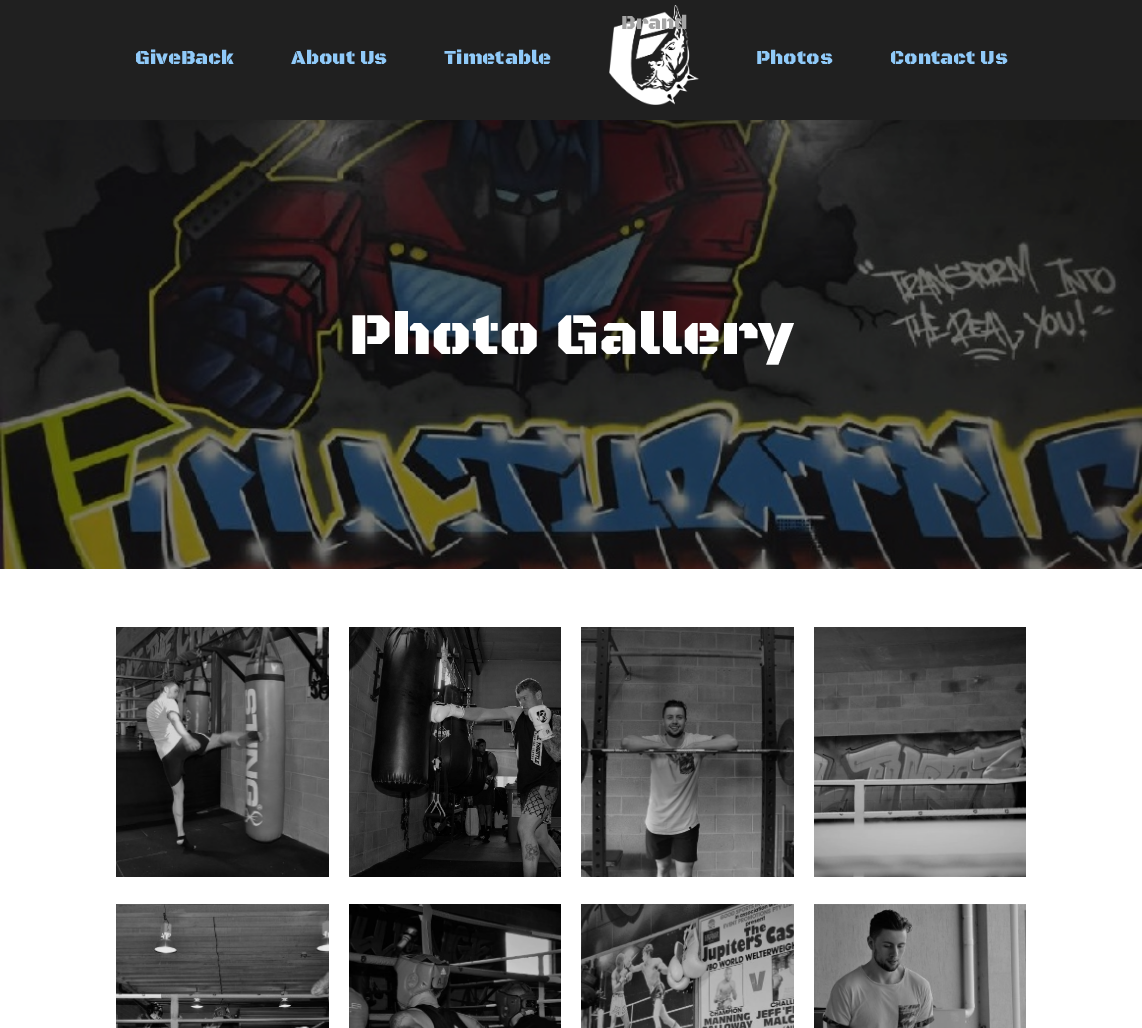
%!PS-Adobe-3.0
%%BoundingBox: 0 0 1142 1028
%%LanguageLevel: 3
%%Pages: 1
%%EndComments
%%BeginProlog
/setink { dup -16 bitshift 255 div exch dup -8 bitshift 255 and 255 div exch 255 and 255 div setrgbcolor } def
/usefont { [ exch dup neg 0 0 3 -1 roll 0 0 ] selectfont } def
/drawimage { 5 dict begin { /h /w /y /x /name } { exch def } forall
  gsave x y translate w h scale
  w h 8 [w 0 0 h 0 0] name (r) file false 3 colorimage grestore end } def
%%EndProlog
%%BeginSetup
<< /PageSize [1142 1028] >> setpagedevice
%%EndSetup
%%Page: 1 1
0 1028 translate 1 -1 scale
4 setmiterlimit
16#FFFFFF setink
0 0 1142 1028 rectfill
16#202020 setink
0 0 1142 120 rectfill
(img1.raw) 609 5 90 100 drawimage
/BlackOpsOne-Black 20 usefont
16#A5A5A5 setink
621 29 moveto (Brand) show
16#90CAF9 setink
[
    [(GiveBack) 135 64]
    [(About Us) 291 64]
    [(Timetable) 444 64]
    [(Photos) 756 64]
    [(Contact Us) 890 64]
] { aload pop moveto show } forall
(img2.raw) 0 120 1142 449 drawimage
/BlackOpsOne-Black 60 usefont
16#FFFFFF setink
349 354 moveto (Photo Gallery) show
(img3.raw) 116 627 213 250 drawimage
(img4.raw) 349 627 212 250 drawimage
(img5.raw) 581 627 213 250 drawimage
(img6.raw) 814 627 212 250 drawimage
(img7.raw) 116 904 213 124 drawimage
(img8.raw) 349 904 212 124 drawimage
(img9.raw) 581 904 213 124 drawimage
(img10.raw) 814 904 212 124 drawimage
showpage
%%EOF
